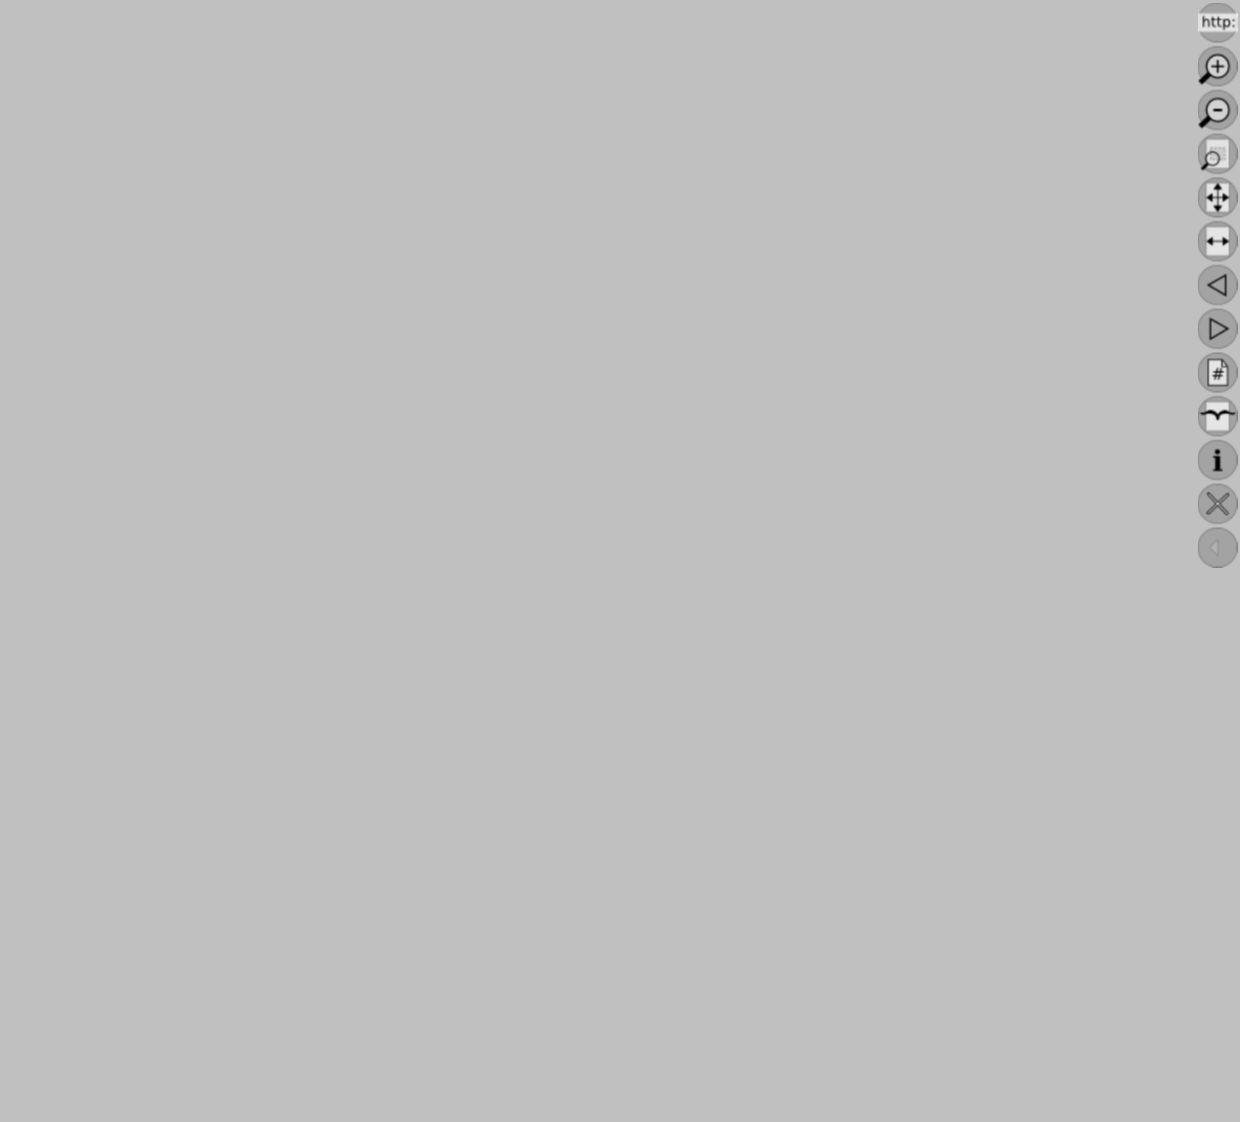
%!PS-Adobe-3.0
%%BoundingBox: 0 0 1240 1122
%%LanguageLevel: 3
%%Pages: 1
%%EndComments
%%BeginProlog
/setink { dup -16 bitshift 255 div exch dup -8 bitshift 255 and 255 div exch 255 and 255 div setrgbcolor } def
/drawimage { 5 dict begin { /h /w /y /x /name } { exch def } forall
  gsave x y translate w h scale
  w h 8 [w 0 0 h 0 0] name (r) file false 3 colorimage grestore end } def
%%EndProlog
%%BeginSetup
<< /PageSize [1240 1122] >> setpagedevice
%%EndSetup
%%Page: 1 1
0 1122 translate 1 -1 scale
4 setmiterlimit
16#C0C0C0 setink
0 0 1240 1122 rectfill
(img1.raw) 1198 3 40 40 drawimage
(img2.raw) 1198 45 40 42 drawimage
(img3.raw) 1198 89 40 42 drawimage
(img4.raw) 1198 133 40 42 drawimage
(img5.raw) 1198 177 40 41 drawimage
(img6.raw) 1198 220 40 42 drawimage
(img7.raw) 1198 264 40 42 drawimage
(img8.raw) 1198 308 40 42 drawimage
(img9.raw) 1198 352 40 41 drawimage
(img10.raw) 1198 395 40 42 drawimage
(img11.raw) 1198 439 40 42 drawimage
(img12.raw) 1198 483 40 42 drawimage
(img13.raw) 1198 527 40 41 drawimage
showpage
%%EOF
